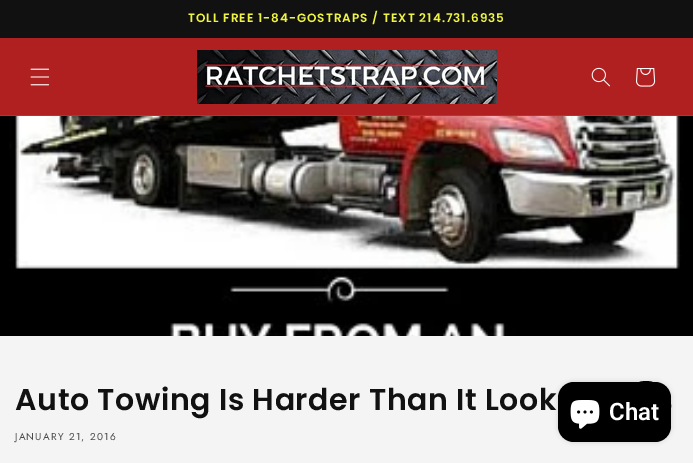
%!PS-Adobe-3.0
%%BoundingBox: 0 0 693 463
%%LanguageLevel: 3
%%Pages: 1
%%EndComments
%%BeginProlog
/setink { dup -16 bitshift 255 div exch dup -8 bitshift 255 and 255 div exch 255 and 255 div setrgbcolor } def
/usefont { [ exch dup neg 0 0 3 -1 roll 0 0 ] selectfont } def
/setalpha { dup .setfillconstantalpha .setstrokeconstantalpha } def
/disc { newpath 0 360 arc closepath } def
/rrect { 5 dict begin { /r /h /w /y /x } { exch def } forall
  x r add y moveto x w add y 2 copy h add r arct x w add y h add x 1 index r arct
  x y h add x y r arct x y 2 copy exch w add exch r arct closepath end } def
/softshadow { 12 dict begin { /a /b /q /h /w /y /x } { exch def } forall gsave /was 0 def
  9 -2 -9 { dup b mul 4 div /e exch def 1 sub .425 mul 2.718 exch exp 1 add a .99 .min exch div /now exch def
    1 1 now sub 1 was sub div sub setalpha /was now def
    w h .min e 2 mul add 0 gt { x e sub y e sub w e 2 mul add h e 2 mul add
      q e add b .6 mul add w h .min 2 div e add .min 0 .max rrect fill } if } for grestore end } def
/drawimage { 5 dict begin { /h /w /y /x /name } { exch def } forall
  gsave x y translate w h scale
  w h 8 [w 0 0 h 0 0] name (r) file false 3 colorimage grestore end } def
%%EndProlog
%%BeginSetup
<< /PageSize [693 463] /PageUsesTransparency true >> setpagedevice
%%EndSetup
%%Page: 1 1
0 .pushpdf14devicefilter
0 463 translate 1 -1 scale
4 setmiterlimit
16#F4F4F4 setink
0 0 693 463 rectfill
16#111112 setink
0 0 693 38 rectfill
/Poppins-SemiBold 12 usefont
16#EFF442 setink
188 22 moveto 1 0 (TOLL FREE 1-84-GOSTRAPS / TEXT 214.731.6935) ashow
16#B12021 setink
0 38 693 77 rectfill
16#B73233 setink
0 115 693 1 rectfill
(img1.raw) 30 68 20 18 drawimage
(img2.raw) 197 50 300 54 drawimage
(img3.raw) 591 67 19 20 drawimage
(img4.raw) 636 68 20 19 drawimage
(img5.raw) 0 116 693 220 drawimage
/Poppins-SemiBold 30 usefont
16#111112 setink
15 410 moveto 0.6 0 (Auto Towing Is Harder Than It Look) ashow
/Jost-Regular 10 usefont
16#4A4A4B setink
15 440 moveto 1.25 0 (JANUARY 21, 2016) ashow
16#000000 setink
2 setlinewidth
646 406 24 disc stroke
558 382 113 60 16 2.5 0.15 softshadow
558 382 113 60 16 rrect fill
(img6.raw) 570 400 30 29 drawimage
/Roboto-SemiBold 24 usefont
16#FFFFFF setink
609 420 moveto (Chat) show
.poppdf14devicefilter showpage
%%EOF
